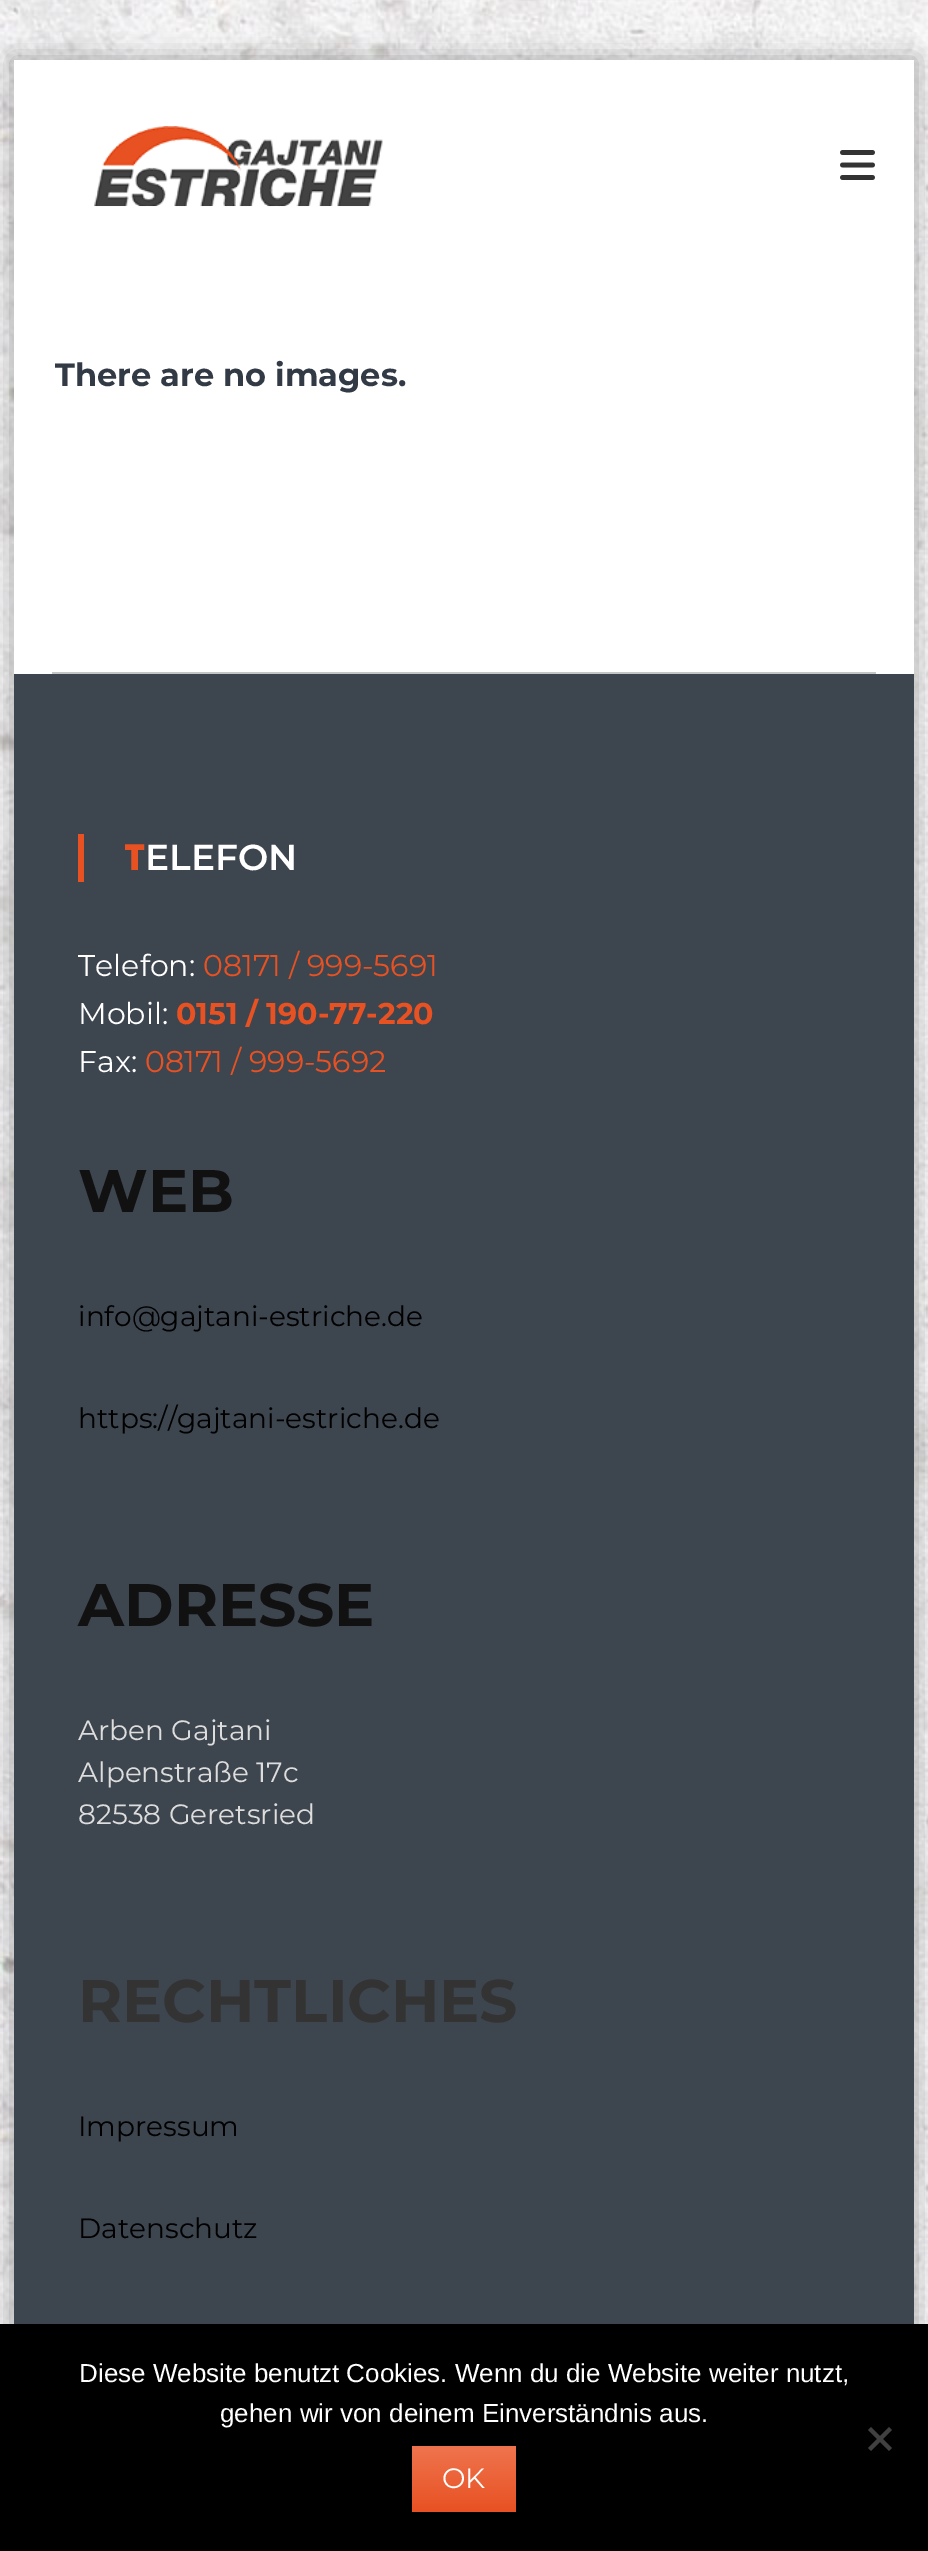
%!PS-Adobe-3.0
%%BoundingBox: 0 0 928 2551
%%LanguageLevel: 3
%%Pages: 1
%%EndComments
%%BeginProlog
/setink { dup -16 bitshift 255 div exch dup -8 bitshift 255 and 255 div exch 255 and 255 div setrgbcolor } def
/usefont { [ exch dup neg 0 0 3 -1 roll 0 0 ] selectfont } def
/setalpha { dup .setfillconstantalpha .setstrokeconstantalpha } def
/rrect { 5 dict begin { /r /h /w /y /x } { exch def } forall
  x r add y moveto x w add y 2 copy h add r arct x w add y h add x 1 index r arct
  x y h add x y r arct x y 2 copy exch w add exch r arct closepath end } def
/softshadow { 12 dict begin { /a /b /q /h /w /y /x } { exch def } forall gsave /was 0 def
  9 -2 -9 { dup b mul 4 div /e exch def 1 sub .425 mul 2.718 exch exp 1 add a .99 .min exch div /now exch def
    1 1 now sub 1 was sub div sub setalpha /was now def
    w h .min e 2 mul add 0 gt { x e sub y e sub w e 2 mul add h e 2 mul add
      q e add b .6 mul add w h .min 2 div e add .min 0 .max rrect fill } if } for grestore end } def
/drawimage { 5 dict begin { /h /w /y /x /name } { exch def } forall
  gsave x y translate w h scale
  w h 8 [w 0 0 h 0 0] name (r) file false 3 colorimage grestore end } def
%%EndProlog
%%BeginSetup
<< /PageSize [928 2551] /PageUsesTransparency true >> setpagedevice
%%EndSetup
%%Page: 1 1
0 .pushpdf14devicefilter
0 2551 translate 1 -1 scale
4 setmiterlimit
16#FFFFFF setink
0 0 928 2551 rectfill
(img1.raw) 0 0 928 2324 drawimage
16#000000 setink
12 58 904 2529 0 12 0.3 softshadow
16#FFFFFF setink
14 60 900 614 rectfill
(img2.raw) 94 126 289 81 drawimage
(img3.raw) 840 150 35 30 drawimage
16#C5C5C5 setink
52 672 824 2 rectfill
/Montserrat-Bold 32 usefont
16#323A45 setink
55 386 moveto (There are no images.) show
16#3D454E setink
14 674 900 1650 rectfill
16#E85122 setink
78 834 6 48 rectfill
/NotoSans-Black 36 usefont
124 870 moveto (T) show
/Montserrat-SemiBold 36 usefont
16#FFFFFF setink
145 870 moveto (ELEFON) show
/Montserrat-Regular 30 usefont
78 976 moveto (Telefon:) show
16#E85122 setink
203 976 moveto (08171 / 999-5691) show
16#FFFFFF setink
78 1024 moveto (Mobil:) show
/Montserrat-Bold 30 usefont
16#E85122 setink
176 1024 moveto (0151 / 190-77-220) show
/Montserrat-Regular 30 usefont
16#FFFFFF setink
78 1072 moveto (Fax:) show
16#E85122 setink
145 1072 moveto (08171 / 999-5692) show
/Montserrat-Bold 60 usefont
16#111111 setink
78 1212 moveto (WEB) show
/Montserrat-Regular 28 usefont
16#000000 setink
78 1326 moveto (info@gajtani-estriche.de) show
78 1428 moveto (https://gajtani-estriche.de) show
/Montserrat-Bold 60 usefont
16#111111 setink
78 1626 moveto (ADRESSE) show
/Montserrat-Regular 28 usefont
16#DDDDDD setink
[
    [(Arben Gajtani) 78 1740]
    [(Alpenstraße 17c) 78 1782]
    [(82538 Geretsried) 78 1824]
] { aload pop moveto show } forall
/Montserrat-Bold 60 usefont
16#333333 setink
78 2022 moveto (RECHTLICHES) show
/Montserrat-Regular 28 usefont
16#000000 setink
78 2136 moveto (Impressum) show
78 2238 moveto (Datenschutz) show
0 2324 928 227 rectfill
/LiberationSans-Regular 26 usefont
16#FFFFFF setink
79 2382 moveto (Diese Website benutzt Cookies. Wenn du die Website weiter nutzt,) show
220 2422 moveto (gehen wir von deinem Einverständnis aus.) show
16#404040 setink
889 2427 moveto 892 2430 lineto 871 2451 lineto 868 2448 lineto closepath fill
868 2430 moveto 871 2427 lineto 892 2448 lineto 889 2451 lineto closepath fill
gsave 412 2446 moveto 516 2446 lineto 516 2512 lineto 412 2512 lineto closepath clip newpath
<< /ShadingType 2 /ColorSpace /DeviceRGB /Coords [464 2446 464 2512] /Extend [true true] /Function << /FunctionType 2 /Domain [0 1] /C0 [0.937 0.455 0.306] /C1 [0.91 0.318 0.133] /N 1 >> >> shfill grestore
/Montserrat-Regular 28 usefont
16#FFFFFF setink
442 2488 moveto (OK) show
.poppdf14devicefilter showpage
%%EOF
